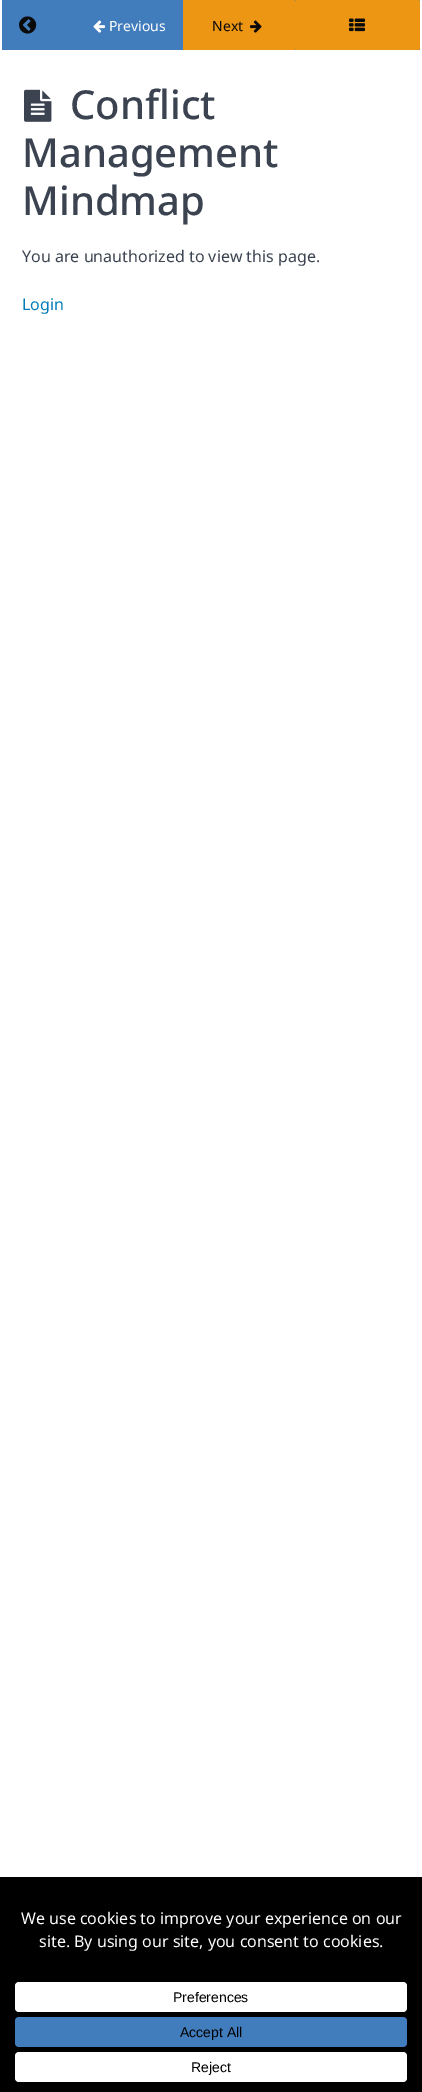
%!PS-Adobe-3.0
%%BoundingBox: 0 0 422 2092
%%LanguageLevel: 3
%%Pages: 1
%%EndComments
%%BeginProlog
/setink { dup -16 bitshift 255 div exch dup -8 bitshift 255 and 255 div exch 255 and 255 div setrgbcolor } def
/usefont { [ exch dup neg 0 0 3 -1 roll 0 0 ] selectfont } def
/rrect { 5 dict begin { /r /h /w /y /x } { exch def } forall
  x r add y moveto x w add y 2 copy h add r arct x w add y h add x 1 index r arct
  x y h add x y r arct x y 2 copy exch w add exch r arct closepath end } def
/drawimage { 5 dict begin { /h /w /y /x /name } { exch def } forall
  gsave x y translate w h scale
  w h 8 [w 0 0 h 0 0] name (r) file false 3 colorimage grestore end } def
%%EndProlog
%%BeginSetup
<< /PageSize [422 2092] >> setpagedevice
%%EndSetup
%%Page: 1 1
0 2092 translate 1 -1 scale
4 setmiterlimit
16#FFFFFF setink
0 0 422 2092 rectfill
16#417DBC setink
2 0 418 50 rectfill
(img1.raw) 19 16 18 18 drawimage
(img2.raw) 93 20 12 13 drawimage
/NotoSans-Regular 14 usefont
16#FFFFFF setink
109 31 moveto (Previous) show
16#EC9613 setink
183 0 112 50 rectfill
16#0A0A0A setink
212 31 moveto (Next) show
(img3.raw) 250 20 12 13 drawimage
16#EC9613 setink
295 0 125 50 2 rrect fill
(img4.raw) 349 18 16 14 drawimage
(img5.raw) 24 89 28 33 drawimage
/NotoSans-Medium 40 usefont
16#3B4351 setink
[
    [(Conflict) 70 119]
    [(Management) 22 167]
    [(Mindmap) 22 215]
] { aload pop moveto show } forall
/NotoSans-Regular 16 usefont
22 262 moveto (You are unauthorized to view this page.) show
16#007CBA setink
22 310 moveto (Login) show
16#000000 setink
0 1877 422 215 rectfill
16#FFFFFF setink
21 1924 moveto (We use cookies to improve your experience on our) show
39 1947 moveto (site. By using our site, you consent to cookies.) show
15 1982 392 30 4 rrect fill
/LiberationSans-Regular 14 usefont
16#000000 setink
173 2002 moveto (Preferences) show
16#417DBC setink
15 2017 392 30 4 rrect fill
16#000000 setink
180 2037 moveto (Accept All) show
16#FFFFFF setink
15 2052 392 30 4 rrect fill
16#000000 setink
191 2072 moveto (Reject) show
showpage
%%EOF
